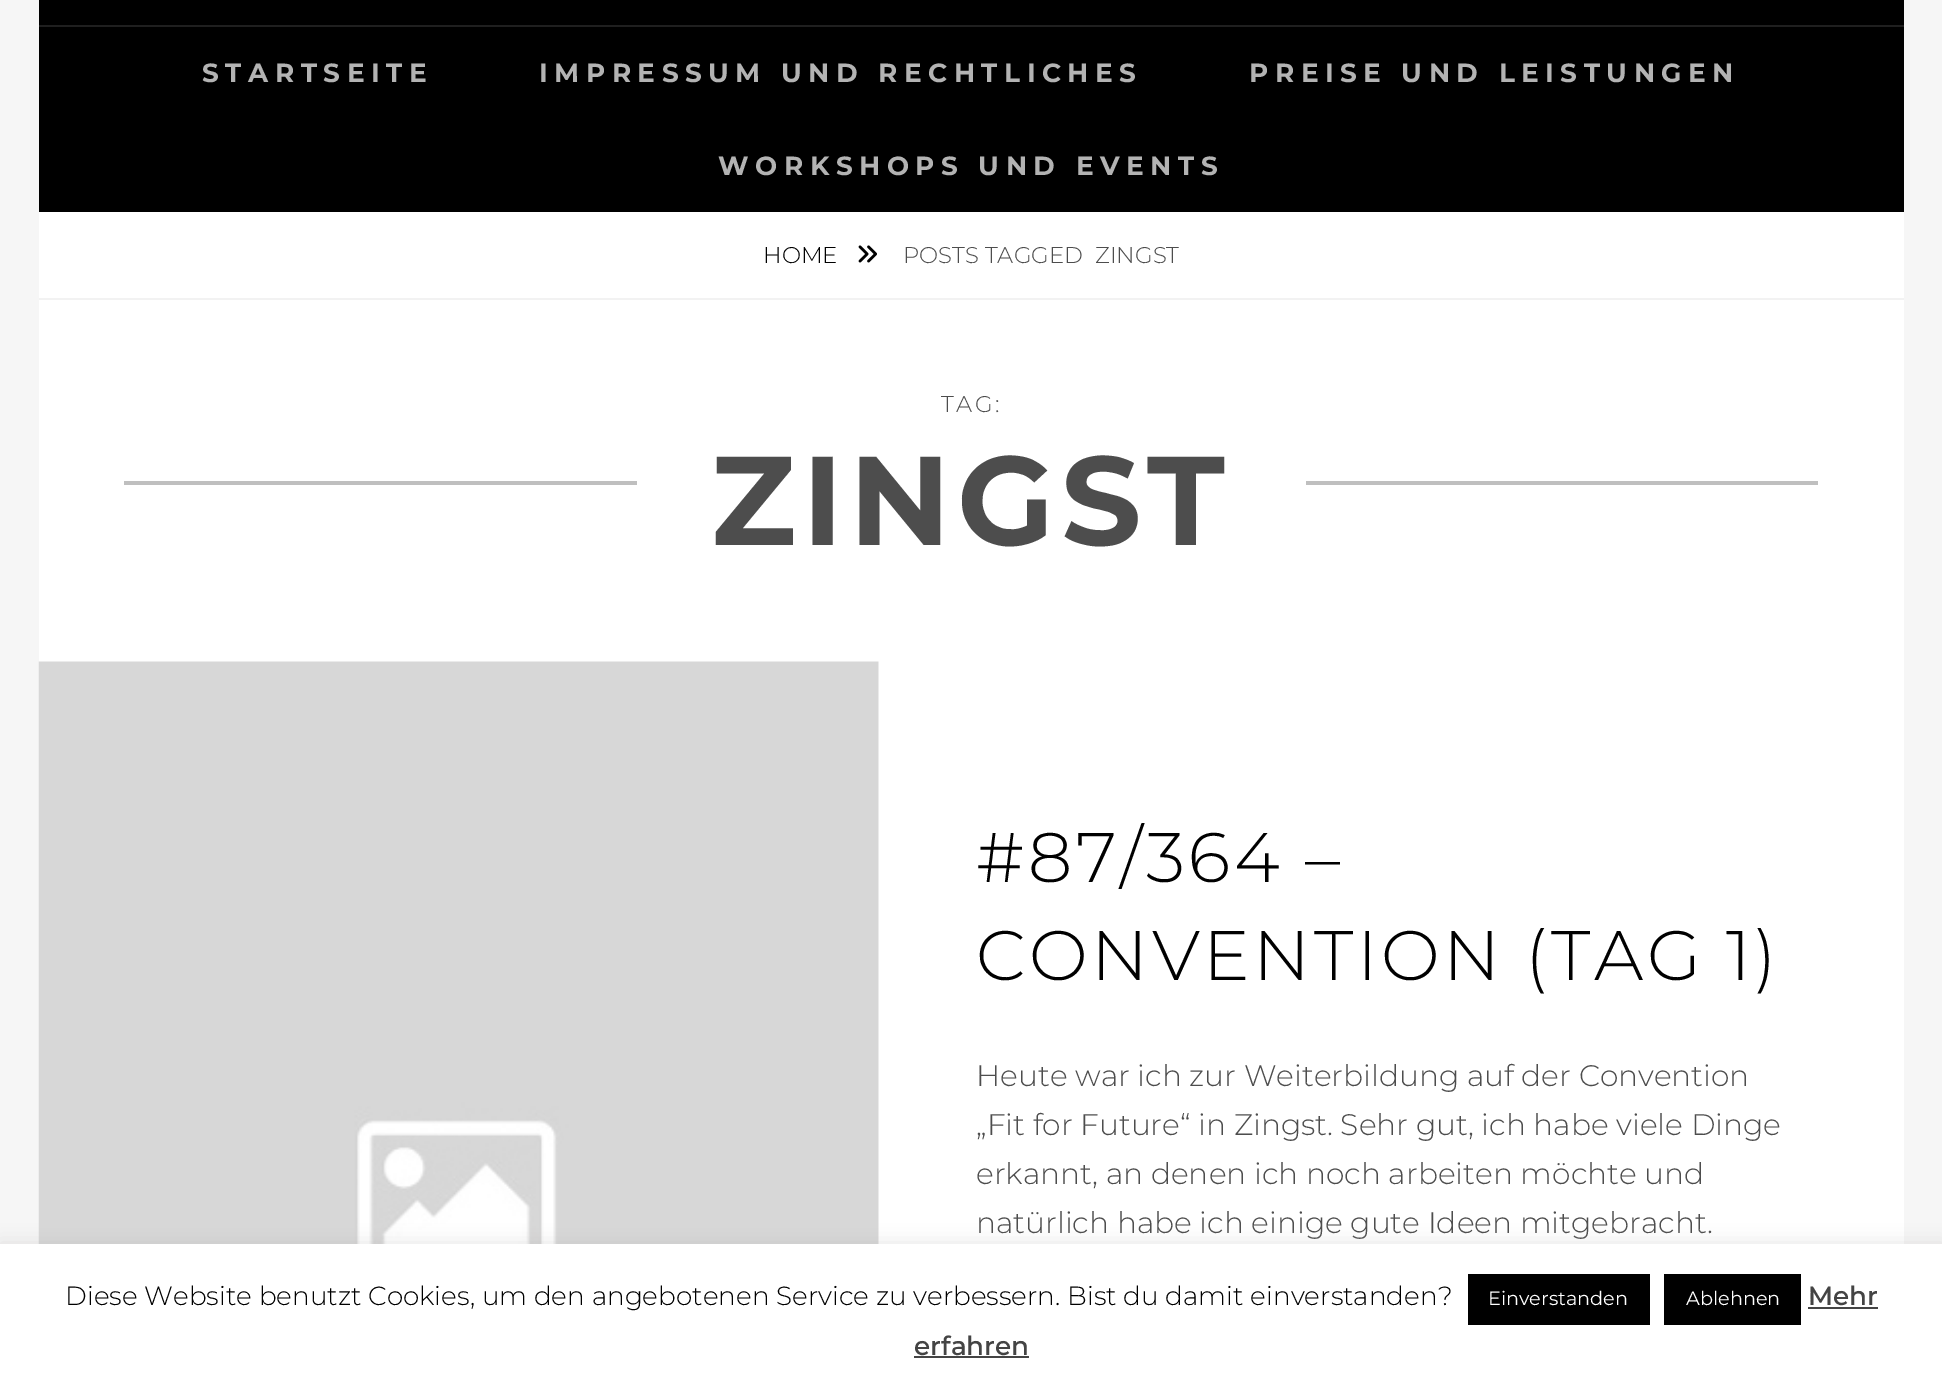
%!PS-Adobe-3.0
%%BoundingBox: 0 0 1942 1388
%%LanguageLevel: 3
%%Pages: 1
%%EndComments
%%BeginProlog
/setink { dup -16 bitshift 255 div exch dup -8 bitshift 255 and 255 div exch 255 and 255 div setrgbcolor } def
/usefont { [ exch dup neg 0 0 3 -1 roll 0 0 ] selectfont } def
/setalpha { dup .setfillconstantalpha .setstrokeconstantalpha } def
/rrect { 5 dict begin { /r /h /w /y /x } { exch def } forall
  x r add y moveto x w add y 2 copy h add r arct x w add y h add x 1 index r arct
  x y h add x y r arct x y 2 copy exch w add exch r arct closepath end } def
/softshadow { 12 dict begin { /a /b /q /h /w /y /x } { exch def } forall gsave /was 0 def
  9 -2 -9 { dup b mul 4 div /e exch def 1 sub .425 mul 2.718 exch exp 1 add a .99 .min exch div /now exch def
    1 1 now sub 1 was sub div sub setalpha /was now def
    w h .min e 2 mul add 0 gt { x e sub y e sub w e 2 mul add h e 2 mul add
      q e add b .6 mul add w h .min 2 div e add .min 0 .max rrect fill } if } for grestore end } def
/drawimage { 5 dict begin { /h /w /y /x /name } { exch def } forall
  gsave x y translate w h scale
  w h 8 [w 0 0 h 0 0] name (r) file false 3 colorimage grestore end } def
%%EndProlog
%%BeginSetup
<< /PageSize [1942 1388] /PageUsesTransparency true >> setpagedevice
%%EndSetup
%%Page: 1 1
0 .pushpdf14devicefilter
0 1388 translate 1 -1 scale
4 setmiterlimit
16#F6F6F6 setink
0 0 1942 1388 rectfill
[
    [39 212 1865 1032 16#FFFFFF]
    [39 0 1865 212 16#000000]
    [39 25 1865 2 16#1F1F1F]
] { aload pop setink rectfill } forall
/Montserrat-Bold 26.25 usefont
16#B3B3B3 setink
202 82 moveto 6.55 0 (STARTSEITE) ashow
539 82 moveto 6.55 0 (IMPRESSUM UND RECHTLICHES) ashow
1249 82 moveto 6.55 0 (PREISE UND LEISTUNGEN) ashow
718 175 moveto 6.55 0 (WORKSHOPS UND EVENTS) ashow
16#F2F2F2 setink
39 298 1865 2 rectfill
/Montserrat-Light 22.75 usefont
16#000000 setink
763 263 moveto (HOME) show
(img1.raw) 858 245 19 18 drawimage
16#4D4D4D setink
903 263 moveto (POSTS TAGGED) show
1095 263 moveto (ZINGST) show
16#BFBFBF setink
124 481 1694 4 rectfill
16#FFFFFF setink
637 481 669 4 rectfill
16#4D4D4D setink
941 412 moveto 2.5 0 (TAG:) ashow
/Montserrat-Bold 126 usefont
711 545 moveto 6.25 0 (ZINGST) ashow
(img2.raw) 38 661 841 583 drawimage
/Montserrat-Light 70 usefont
16#000000 setink
976 882 moveto 3.5 0 (#87/364 –) ashow
976 980 moveto 3.5 0 (CONVENTION \(TAG 1\)) ashow
/Montserrat-Light 29.75 usefont
16#4D4D4D setink
[
    [(Heute war ich zur Weiterbildung auf der Convention) 976 1086]
    [(„Fit for Future“ in Zingst. Sehr gut, ich habe viele Dinge) 976 1135]
    [(erkannt, an denen ich noch arbeiten möchte und) 976 1184]
    [(natürlich habe ich einige gute Ideen mitgebracht.) 976 1233]
] { aload pop moveto show } forall
16#ACABAB setink
0 1243 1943 145 0 9 0.3 softshadow
16#FFFFFF setink
0 1244 1942 144 rectfill
/Montserrat-Light 26.25 usefont
16#000000 setink
65 1305 moveto (Diese Website benutzt Cookies, um den angebotenen Service zu verbessern. Bist du damit einverstanden?) show
1468 1274 182 51 rectfill
/Montserrat-Regular 19.25 usefont
16#FFFFFF setink
1488 1305 moveto (Einverstanden) show
16#000000 setink
1664 1274 137 51 rectfill
16#FFFFFF setink
1686 1305 moveto (Ablehnen) show
/Montserrat-Medium 26.25 usefont
16#444444 setink
1808 1305 moveto (Mehr) show
1808 1307 70 2 rectfill
914 1355 moveto (erfahren) show
914 1356 115 2 rectfill
.poppdf14devicefilter showpage
%%EOF
